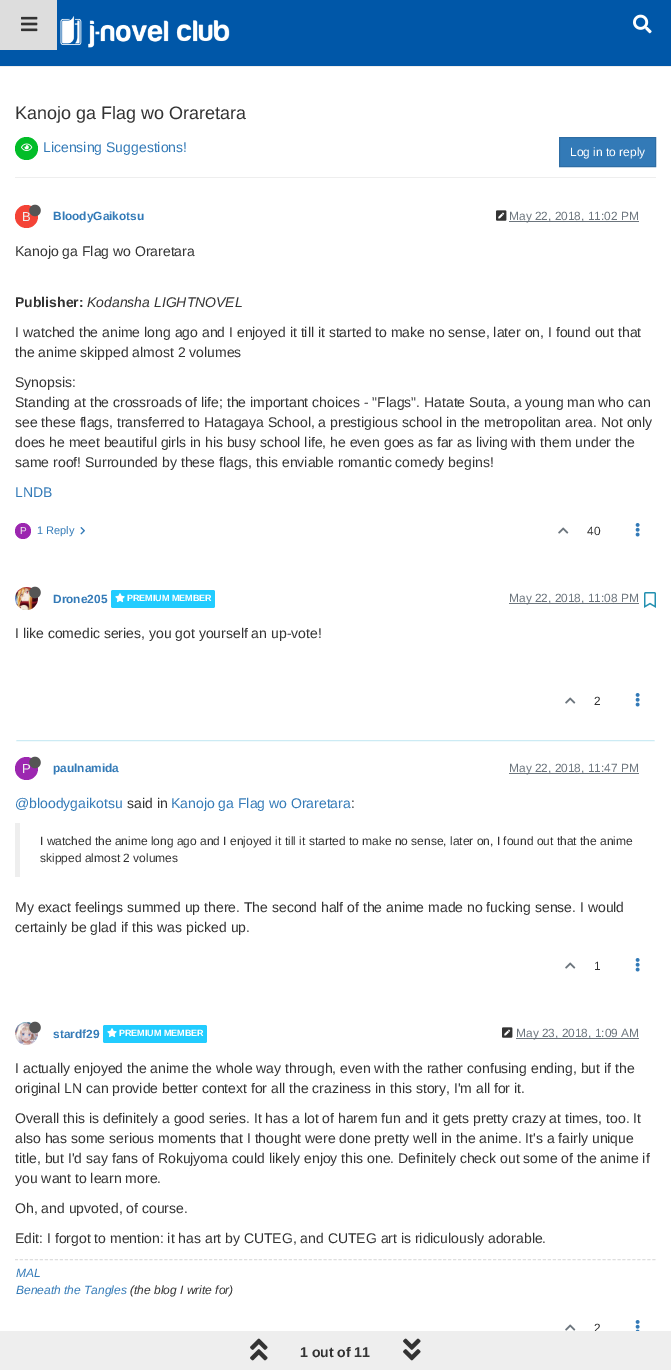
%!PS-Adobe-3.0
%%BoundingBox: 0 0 671 1370
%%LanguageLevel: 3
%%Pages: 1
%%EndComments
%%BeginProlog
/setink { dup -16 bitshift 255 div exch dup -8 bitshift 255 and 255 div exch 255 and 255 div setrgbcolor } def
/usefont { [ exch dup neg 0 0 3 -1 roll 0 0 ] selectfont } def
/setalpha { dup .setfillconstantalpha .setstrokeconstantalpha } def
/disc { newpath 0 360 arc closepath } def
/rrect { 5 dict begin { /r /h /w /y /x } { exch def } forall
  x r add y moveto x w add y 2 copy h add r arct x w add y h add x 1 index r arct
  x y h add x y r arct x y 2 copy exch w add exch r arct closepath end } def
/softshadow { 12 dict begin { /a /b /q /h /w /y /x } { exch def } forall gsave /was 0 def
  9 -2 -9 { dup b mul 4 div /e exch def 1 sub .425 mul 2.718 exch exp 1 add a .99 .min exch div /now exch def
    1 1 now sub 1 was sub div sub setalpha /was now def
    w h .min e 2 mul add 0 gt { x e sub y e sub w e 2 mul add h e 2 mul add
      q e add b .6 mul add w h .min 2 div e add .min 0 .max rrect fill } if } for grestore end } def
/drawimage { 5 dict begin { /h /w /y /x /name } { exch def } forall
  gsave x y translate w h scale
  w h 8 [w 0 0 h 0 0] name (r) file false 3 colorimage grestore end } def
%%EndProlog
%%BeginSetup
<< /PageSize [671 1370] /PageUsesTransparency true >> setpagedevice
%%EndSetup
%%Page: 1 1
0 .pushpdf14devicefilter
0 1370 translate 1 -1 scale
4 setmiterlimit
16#FFFFFF setink
0 0 671 1370 rectfill
[
    [0 0 671 66 16#0057A8]
    [0 66 671 1 16#EEEEEE]
    [0 0 57 50 16#DDDDDD]
] { aload pop setink rectfill } forall
(img1.raw) 21 16 17 16 drawimage
(img2.raw) 60 16 170 32 drawimage
(img3.raw) 633 14 19 20 drawimage
/LiberationSans-Regular 18 usefont
16#333333 setink
15 119 moveto (Kanojo ga Flag wo Oraretara) show
16#EEEEEE setink
15 177 641 1 rectfill
16#02BD28 setink
26.5 148.5 11.5 disc fill
(img4.raw) 21 143 12 8 drawimage
/LiberationSans-Regular 14 usefont
16#337AB7 setink
43 152 moveto (Licensing Suggestions!) show
559.5 137.5 moveto 655.5 137.5 lineto 655.5 166.5 lineto 559.5 166.5 lineto closepath gsave fill grestore
16#2E6DA4 setink
stroke
/LiberationSans-Regular 12 usefont
16#FFFFFF setink
570 156 moveto (Log in to reply) show
16#F44336 setink
26.5 216.5 11.5 disc fill
/LiberationSans-Regular 13 usefont
16#EEEEEE setink
22 221 moveto (B) show
(img5.raw) 29 204 12 13 drawimage
/LiberationSans-Bold 11.9 usefont
16#337AB7 setink
53 220 moveto (BloodyGaikotsu) show
(img6.raw) 496 210 11 11 drawimage
16#6C757D setink
509 221 130 1 rectfill
/LiberationSans-Regular 11.9 usefont
509 220 moveto (May 22, 2018, 11:02 PM) show
/LiberationSans-Regular 14 usefont
16#333333 setink
15 256 moveto (Kanojo ga Flag wo Oraretara) show
/LiberationSans-Bold 14 usefont
15 307 moveto (Publisher:) show
/LiberationSans-Italic 14 usefont
87 307 moveto (Kodansha LIGHTNOVEL) show
/LiberationSans-Regular 14 usefont
[
    [(I watched the anime long ago and I enjoyed it till it started to make no sense, later on, I found out that) 15 337]
    [(the anime skipped almost 2 volumes) 15 357]
    [(Synopsis:) 15 387]
    [(Standing at the crossroads of life; the important choices - "Flags". Hatate Souta, a young man who can) 15 407]
    [(see these flags, transferred to Hatagaya School, a prestigious school in the metropolitan area. Not only) 15 427]
    [(does he meet beautiful girls in his busy school life, he even goes as far as living with them under the) 15 447]
    [(same roof! Surrounded by these flags, this enviable romantic comedy begins!) 15 467]
] { aload pop moveto show } forall
16#337AB7 setink
15 497 moveto (LNDB) show
16#9C27B0 setink
23 531 8 disc fill
/LiberationSans-Regular 10 usefont
16#EEEEEE setink
20 534 moveto (P) show
/LiberationSans-Regular 11 usefont
16#337AB7 setink
37 534 moveto (1 Reply) show
(img7.raw) 80 527 5 8 drawimage
(img8.raw) 558 527 11 7 drawimage
/LiberationSans-Regular 11.9 usefont
16#333333 setink
587 535 moveto (40) show
(img9.raw) 635 523 5 14 drawimage
gsave
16 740 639 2 rectclip
16#5BC0DE setink
17 574 637 166 0 1 1 softshadow
grestore
(img11.raw) 15 587 23 23 drawimage
(img10.raw) 29 586 12 13 drawimage
/LiberationSans-Bold 11.9 usefont
16#337AB7 setink
53 603 moveto (Drone205) show
16#22CCFF setink
111 590 104 18 2 rrect fill
(img12.raw) 115 593 10 10 drawimage
/LiberationSans-Bold 9 usefont
16#FFFFFF setink
127 601 moveto (PREMIUM MEMBER) show
16#6C757D setink
509 603 130 1 rectfill
/LiberationSans-Regular 11.9 usefont
509 602 moveto (May 22, 2018, 11:08 PM) show
(img13.raw) 644 592 12 16 drawimage
/LiberationSans-Regular 14 usefont
16#333333 setink
15 638 moveto (I like comedic series, you got yourself an up-vote!) show
(img8.raw) 565 697 11 7 drawimage
/LiberationSans-Regular 11.9 usefont
594 705 moveto (2) show
(img9.raw) 635 693 5 14 drawimage
16#9C27B0 setink
26.5 768.5 11.5 disc fill
/LiberationSans-Regular 13 usefont
16#EEEEEE setink
22 773 moveto (P) show
(img14.raw) 29 756 12 13 drawimage
/LiberationSans-Bold 11.9 usefont
16#337AB7 setink
53 772 moveto (paulnamida) show
16#6C757D setink
509 773 130 1 rectfill
/LiberationSans-Regular 11.9 usefont
509 772 moveto (May 22, 2018, 11:47 PM) show
/LiberationSans-Regular 14 usefont
16#337AB7 setink
15 808 moveto (@bloodygaikotsu) show
16#333333 setink
127 808 moveto (said in) show
16#337AB7 setink
171 808 moveto (Kanojo ga Flag wo Oraretara) show
16#333333 setink
351 808 moveto (:) show
16#EEEEEE setink
15 823 5 54 rectfill
/LiberationSans-Regular 12 usefont
16#333333 setink
40 845 moveto (I watched the anime long ago and I enjoyed it till it started to make no sense, later on, I found out that the anime) show
40 862 moveto (skipped almost 2 volumes) show
/LiberationSans-Regular 14 usefont
15 912 moveto (My exact feelings summed up there. The second half of the anime made no fucking sense. I would) show
15 932 moveto (certainly be glad if this was picked up.) show
(img8.raw) 565 962 11 7 drawimage
/LiberationSans-Regular 11.9 usefont
594 970 moveto (1) show
(img9.raw) 635 958 5 14 drawimage
(img16.raw) 15 1022 23 23 drawimage
(img15.raw) 29 1021 12 13 drawimage
/LiberationSans-Bold 11.9 usefont
16#337AB7 setink
53 1038 moveto (stardf29) show
16#22CCFF setink
103 1025 104 18 2 rrect fill
(img12.raw) 107 1028 10 10 drawimage
/LiberationSans-Bold 9 usefont
16#FFFFFF setink
119 1036 moveto (PREMIUM MEMBER) show
(img6.raw) 502 1027 11 11 drawimage
16#6C757D setink
516 1038 123 1 rectfill
/LiberationSans-Regular 11.9 usefont
516 1037 moveto (May 23, 2018, 1:09 AM) show
/LiberationSans-Regular 14 usefont
16#333333 setink
[
    [(I actually enjoyed the anime the whole way through, even with the rather confusing ending, but if the) 15 1073]
    [(original LN can provide better context for all the craziness in this story, I'm all for it.) 15 1093]
    [(Overall this is definitely a good series. It has a lot of harem fun and it gets pretty crazy at times, too. It) 15 1123]
    [(also has some serious moments that I thought were done pretty well in the anime. It's a fairly unique) 15 1143]
    [(title, but I'd say fans of Rokujyoma could likely enjoy this one. Definitely check out some of the anime if) 15 1163]
    [(you want to learn more.) 15 1183]
    [(Oh, and upvoted, of course.) 15 1213]
    [(Edit: I forgot to mention: it has art by CUTEG, and CUTEG art is ridiculously adorable.) 15 1243]
] { aload pop moveto show } forall
16#DEDEDE setink
[3 1.98] 0 setdash
15 1259.5 moveto 656 1259.5 lineto stroke
/LiberationSans-Italic 12 usefont
16#337AB7 setink
16 1277 moveto (MAL) show
16 1294 moveto (Beneath the Tangles) show
16#333333 setink
130 1294 moveto (\(the blog I write for\)) show
(img8.raw) 565 1324 11 7 drawimage
/LiberationSans-Regular 11.9 usefont
594 1332 moveto (2) show
(img17.raw) 635 1320 5 11 drawimage
16#EEEEEE setink
0 1331 671 39 rectfill
(img18.raw) 250 1338 18 23 drawimage
/LiberationSans-Bold 14 usefont
16#333333 setink
300 1357 moveto (1 out of 11) show
(img19.raw) 403 1338 18 23 drawimage
.poppdf14devicefilter showpage
%%EOF
